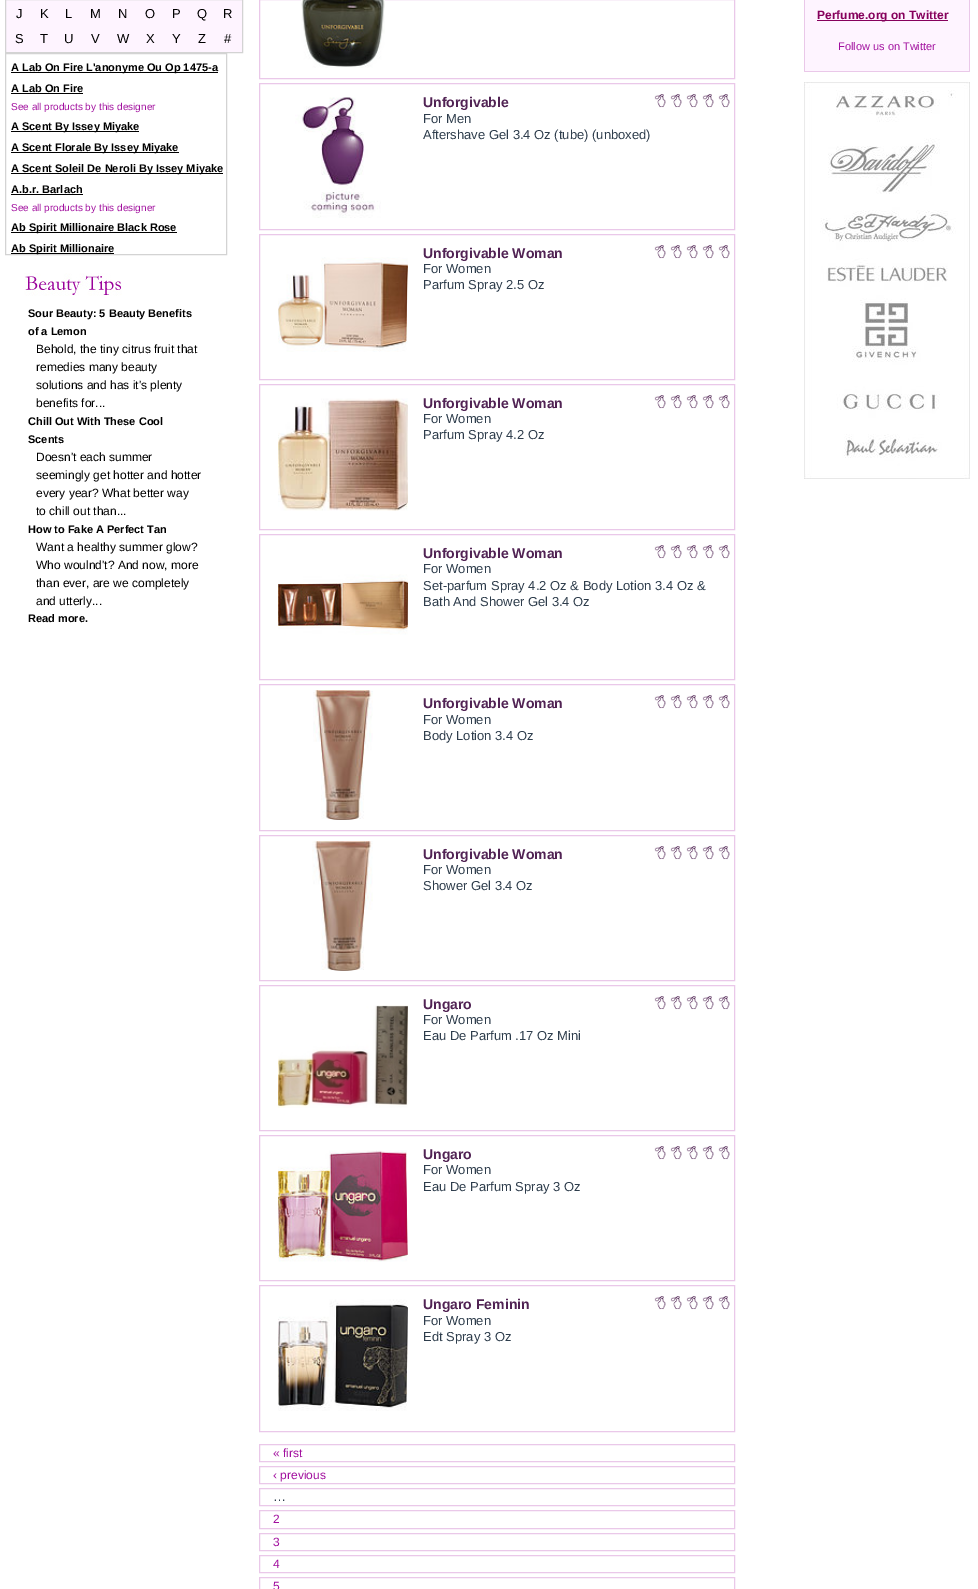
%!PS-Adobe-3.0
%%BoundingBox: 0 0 978 1589
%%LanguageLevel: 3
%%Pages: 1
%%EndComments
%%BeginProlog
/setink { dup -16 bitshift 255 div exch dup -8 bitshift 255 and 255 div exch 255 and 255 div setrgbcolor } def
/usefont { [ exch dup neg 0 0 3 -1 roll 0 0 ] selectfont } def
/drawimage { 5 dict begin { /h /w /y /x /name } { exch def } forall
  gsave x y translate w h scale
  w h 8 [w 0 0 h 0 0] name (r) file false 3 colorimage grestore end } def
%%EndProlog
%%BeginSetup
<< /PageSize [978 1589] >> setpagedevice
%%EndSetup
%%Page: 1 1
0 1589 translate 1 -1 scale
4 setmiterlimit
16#FFFFFF setink
0 0 978 1589 rectfill
16#FEF4FF setink
5.5 -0.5 moveto 242.5 -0.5 lineto 242.5 52.5 lineto 5.5 52.5 lineto closepath gsave fill grestore
16#D3D3D3 setink
stroke
/LiberationSans-Regular 13 usefont
16#000000 setink
[
    [(J) 16 18]
    [(K) 40 18]
    [(L) 65 18]
    [(M) 90 18]
    [(N) 118 18]
    [(O) 145 18]
    [(P) 172 18]
    [(Q) 197 18]
    [(R) 223 18]
    [(S) 15 43]
    [(T) 40 43]
    [(U) 64 43]
    [(V) 91 43]
    [(W) 117 43]
    [(X) 146 43]
    [(Y) 172 43]
    [(Z) 198 43]
    [(#) 224 43]
] { aload pop moveto show } forall
16#D3D3D3 setink
5.5 53.5 221 201 rectstroke
16#000000 setink
11 72 207 1 rectfill
/LiberationSans-Bold 11 usefont
11 71 moveto (A Lab On Fire L'anonyme Ou Op 1475-a) show
11 92 moveto (A Lab On Fire) show
11 93 72 1 rectfill
/LiberationSans-Regular 10 usefont
16#A2109F setink
11 110 moveto (See all products by this designer) show
16#000000 setink
11 131 128 1 rectfill
/LiberationSans-Bold 11 usefont
11 130 moveto (A Scent By Issey Miyake) show
11 152 168 1 rectfill
11 151 moveto (A Scent Florale By Issey Miyake) show
11 173 212 1 rectfill
11 172 moveto (A Scent Soleil De Neroli By Issey Miyake) show
11 193 moveto (A.b.r. Barlach) show
11 194 72 1 rectfill
/LiberationSans-Regular 10 usefont
16#A2109F setink
11 211 moveto (See all products by this designer) show
16#000000 setink
11 232 166 1 rectfill
/LiberationSans-Bold 11 usefont
11 231 moveto (Ab Spirit Millionaire Black Rose) show
11 253 103 1 rectfill
11 252 moveto (Ab Spirit Millionaire) show
(img1.raw) 24 273 98 23 drawimage
28 317 moveto (Sour Beauty: 5 Beauty Benefits) show
28 335 moveto (of a Lemon) show
/LiberationSans-Regular 12 usefont
[
    [(Behold, the tiny citrus fruit that) 36 353]
    [(remedies many beauty) 36 371]
    [(solutions and has it's plenty) 36 389]
    [(benefits for...) 36 407]
] { aload pop moveto show } forall
/LiberationSans-Bold 11 usefont
28 425 moveto (Chill Out With These Cool) show
28 443 moveto (Scents) show
/LiberationSans-Regular 12 usefont
[
    [(Doesn't each summer) 36 461]
    [(seemingly get hotter and hotter) 36 479]
    [(every year? What better way) 36 497]
    [(to chill out than...) 36 515]
] { aload pop moveto show } forall
/LiberationSans-Bold 11 usefont
28 533 moveto (How to Fake A Perfect Tan) show
/LiberationSans-Regular 12 usefont
[
    [(Want a healthy summer glow?) 36 551]
    [(Who woulnd't? And now, more) 36 569]
    [(than ever, are we completely) 36 587]
    [(and utterly...) 36 605]
] { aload pop moveto show } forall
/LiberationSans-Bold 11 usefont
28 622 moveto (Read more.) show
[
    [804 0 1 71 16#EAC8E9]
    [805 0 164 71 16#FEF4FF]
    [969 0 1 71 16#EAC8E9]
    [817 20 131 1 16#86005C]
] { aload pop setink rectfill } forall
/LiberationSans-Bold 12 usefont
817 19 moveto (Perfume.org on Twitter) show
/LiberationSans-Regular 11 usefont
16#A2109F setink
838 50 moveto (Follow us on Twitter) show
[
    [804 71 1 1 16#EBCCE8]
    [805 71 164 1 16#EAC8E9]
    [969 71 1 1 16#EBCCE8]
] { aload pop setink rectfill } forall
(img2.raw) 804 82 166 397 drawimage
16#EAC8E9 setink
259.5 -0.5 475 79 rectstroke
(img3.raw) 301 0 84 68 drawimage
259.5 83.5 475 146 rectstroke
(img4.raw) 295 97 86 121 drawimage
/LiberationSans-Bold 14 usefont
16#512354 setink
423 107 moveto (Unforgivable) show
(img5.raw) 654 94 12 14 drawimage
(img5.raw) 670 94 12 14 drawimage
(img5.raw) 686 94 12 14 drawimage
(img5.raw) 702 94 12 14 drawimage
(img5.raw) 718 94 12 14 drawimage
/LiberationSans-Regular 13 usefont
16#2E3D4C setink
423 123 moveto (For Men) show
423 139 moveto (Aftershave Gel 3.4 Oz \(tube\) \(unboxed\)) show
16#EAC8E9 setink
259.5 234.5 475 145 rectstroke
/LiberationSans-Bold 14 usefont
16#512354 setink
423 258 moveto (Unforgivable Woman) show
(img5.raw) 654 245 12 14 drawimage
(img5.raw) 670 245 12 14 drawimage
(img5.raw) 686 245 12 14 drawimage
(img5.raw) 702 245 12 14 drawimage
(img5.raw) 718 245 12 14 drawimage
(img6.raw) 278 257 130 95 drawimage
/LiberationSans-Regular 13 usefont
16#2E3D4C setink
423 273 moveto (For Women) show
423 289 moveto (Parfum Spray 2.5 Oz) show
16#EAC8E9 setink
259.5 384.5 475 145 rectstroke
(img7.raw) 278 398 130 113 drawimage
/LiberationSans-Bold 14 usefont
16#512354 setink
423 408 moveto (Unforgivable Woman) show
(img5.raw) 654 395 12 14 drawimage
(img5.raw) 670 395 12 14 drawimage
(img5.raw) 686 395 12 14 drawimage
(img5.raw) 702 395 12 14 drawimage
(img5.raw) 718 395 12 14 drawimage
/LiberationSans-Regular 13 usefont
16#2E3D4C setink
423 423 moveto (For Women) show
423 439 moveto (Parfum Spray 4.2 Oz) show
16#EAC8E9 setink
259.5 534.5 475 145 rectstroke
/LiberationSans-Bold 14 usefont
16#512354 setink
423 558 moveto (Unforgivable Woman) show
(img5.raw) 654 545 12 14 drawimage
(img5.raw) 670 545 12 14 drawimage
(img5.raw) 686 545 12 14 drawimage
(img5.raw) 702 545 12 14 drawimage
(img5.raw) 718 545 12 14 drawimage
/LiberationSans-Regular 13 usefont
16#2E3D4C setink
423 573 moveto (For Women) show
(img8.raw) 278 574 130 61 drawimage
423 590 moveto (Set-parfum Spray 4.2 Oz & Body Lotion 3.4 Oz &) show
423 606 moveto (Bath And Shower Gel 3.4 Oz) show
16#EAC8E9 setink
259.5 684.5 475 146 rectstroke
(img9.raw) 313 690 60 130 drawimage
/LiberationSans-Bold 14 usefont
16#512354 setink
423 708 moveto (Unforgivable Woman) show
(img5.raw) 654 695 12 14 drawimage
(img5.raw) 670 695 12 14 drawimage
(img5.raw) 686 695 12 14 drawimage
(img5.raw) 702 695 12 14 drawimage
(img5.raw) 718 695 12 14 drawimage
/LiberationSans-Regular 13 usefont
16#2E3D4C setink
423 724 moveto (For Women) show
423 740 moveto (Body Lotion 3.4 Oz) show
16#EAC8E9 setink
259.5 835.5 475 145 rectstroke
(img10.raw) 312 841 61 130 drawimage
/LiberationSans-Bold 14 usefont
16#512354 setink
423 859 moveto (Unforgivable Woman) show
(img5.raw) 654 846 12 14 drawimage
(img5.raw) 670 846 12 14 drawimage
(img5.raw) 686 846 12 14 drawimage
(img5.raw) 702 846 12 14 drawimage
(img5.raw) 718 846 12 14 drawimage
/LiberationSans-Regular 13 usefont
16#2E3D4C setink
423 874 moveto (For Women) show
423 890 moveto (Shower Gel 3.4 Oz) show
16#EAC8E9 setink
259.5 985.5 475 145 rectstroke
(img11.raw) 278 1005 130 103 drawimage
/LiberationSans-Bold 14 usefont
16#512354 setink
423 1009 moveto (Ungaro) show
(img5.raw) 654 996 12 14 drawimage
(img5.raw) 670 996 12 14 drawimage
(img5.raw) 686 996 12 14 drawimage
(img5.raw) 702 996 12 14 drawimage
(img5.raw) 718 996 12 14 drawimage
/LiberationSans-Regular 13 usefont
16#2E3D4C setink
423 1024 moveto (For Women) show
423 1040 moveto (Eau De Parfum .17 Oz Mini) show
16#EAC8E9 setink
259.5 1135.5 475 145 rectstroke
(img12.raw) 278 1150 130 112 drawimage
/LiberationSans-Bold 14 usefont
16#512354 setink
423 1159 moveto (Ungaro) show
(img5.raw) 654 1146 12 14 drawimage
(img5.raw) 670 1146 12 14 drawimage
(img5.raw) 686 1146 12 14 drawimage
(img5.raw) 702 1146 12 14 drawimage
(img5.raw) 718 1146 12 14 drawimage
/LiberationSans-Regular 13 usefont
16#2E3D4C setink
423 1174 moveto (For Women) show
423 1191 moveto (Eau De Parfum Spray 3 Oz) show
16#EAC8E9 setink
259.5 1285.5 475 146 rectstroke
(img13.raw) 278 1299 130 112 drawimage
/LiberationSans-Bold 14 usefont
16#512354 setink
423 1309 moveto (Ungaro Feminin) show
(img5.raw) 654 1296 12 14 drawimage
(img5.raw) 670 1296 12 14 drawimage
(img5.raw) 686 1296 12 14 drawimage
(img5.raw) 702 1296 12 14 drawimage
(img5.raw) 718 1296 12 14 drawimage
/LiberationSans-Regular 13 usefont
16#2E3D4C setink
423 1325 moveto (For Women) show
423 1341 moveto (Edt Spray 3 Oz) show
16#EAC8E9 setink
259.5 1444.5 475 17 rectstroke
/LiberationSans-Regular 12 usefont
16#A2109F setink
273 1457 moveto (« first) show
16#EAC8E9 setink
259.5 1466.5 475 17 rectstroke
16#A2109F setink
273 1479 moveto (‹ previous) show
16#EAC8E9 setink
259.5 1488.5 475 17 rectstroke
/LiberationSans-Regular 13 usefont
16#2E3D4C setink
273 1501 moveto (…) show
16#EAC8E9 setink
259.5 1510.5 475 18 rectstroke
/LiberationSans-Regular 12 usefont
16#A2109F setink
273 1523 moveto (2) show
16#EAC8E9 setink
259.5 1533.5 475 17 rectstroke
16#A2109F setink
273 1546 moveto (3) show
16#EAC8E9 setink
259.5 1555.5 475 17 rectstroke
16#A2109F setink
273 1568 moveto (4) show
16#EAC8E9 setink
259.5 1577.5 475 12 rectstroke
16#A2109F setink
273 1590 moveto (5) show
showpage
%%EOF
